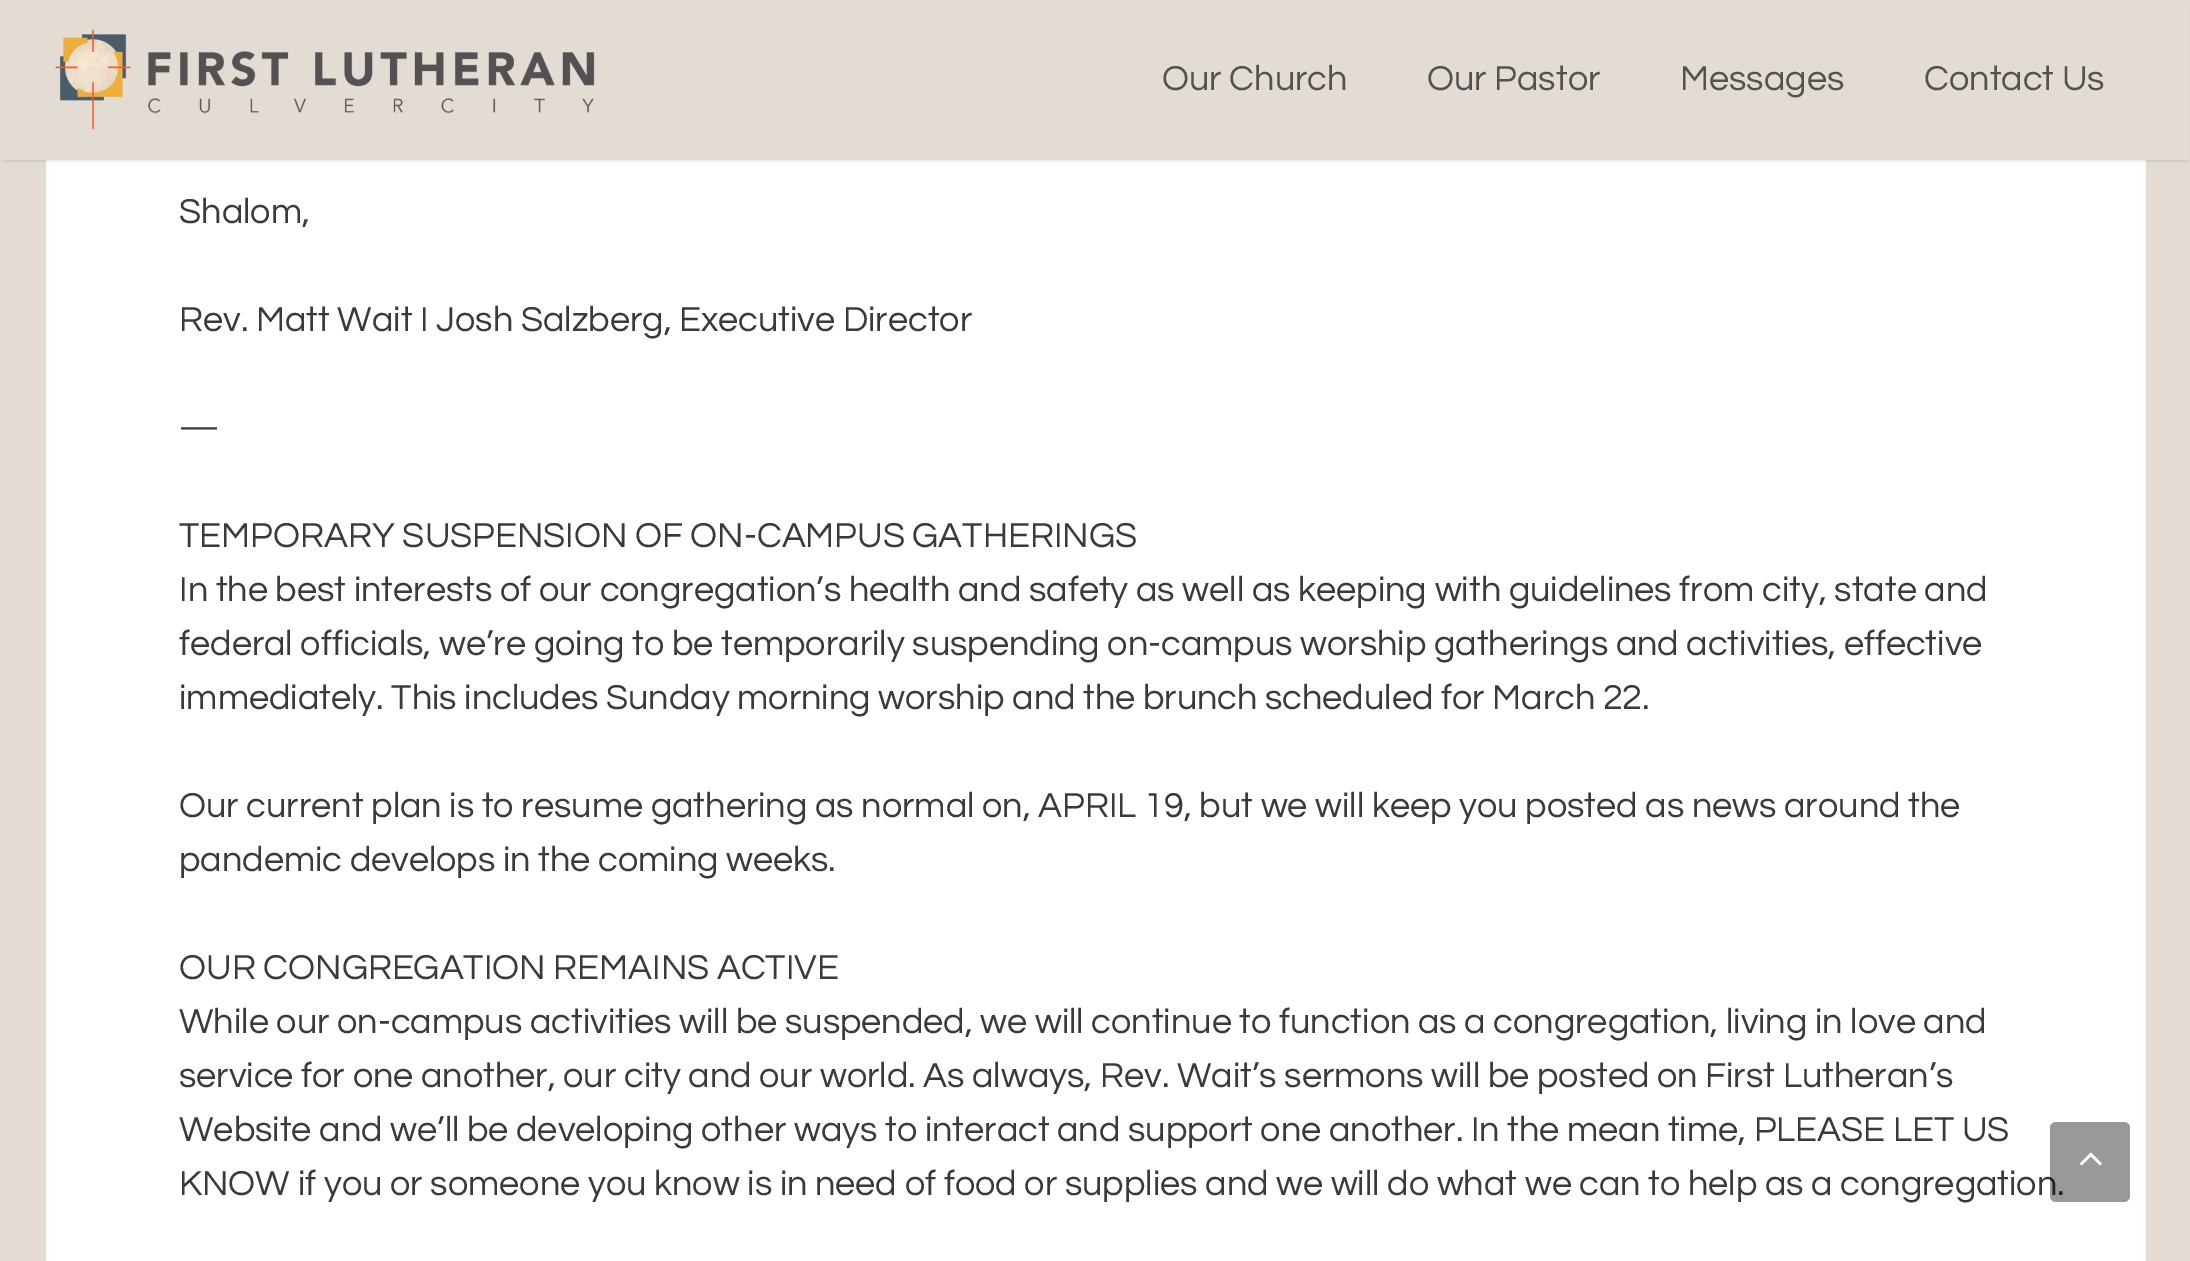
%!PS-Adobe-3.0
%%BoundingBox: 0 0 2190 1261
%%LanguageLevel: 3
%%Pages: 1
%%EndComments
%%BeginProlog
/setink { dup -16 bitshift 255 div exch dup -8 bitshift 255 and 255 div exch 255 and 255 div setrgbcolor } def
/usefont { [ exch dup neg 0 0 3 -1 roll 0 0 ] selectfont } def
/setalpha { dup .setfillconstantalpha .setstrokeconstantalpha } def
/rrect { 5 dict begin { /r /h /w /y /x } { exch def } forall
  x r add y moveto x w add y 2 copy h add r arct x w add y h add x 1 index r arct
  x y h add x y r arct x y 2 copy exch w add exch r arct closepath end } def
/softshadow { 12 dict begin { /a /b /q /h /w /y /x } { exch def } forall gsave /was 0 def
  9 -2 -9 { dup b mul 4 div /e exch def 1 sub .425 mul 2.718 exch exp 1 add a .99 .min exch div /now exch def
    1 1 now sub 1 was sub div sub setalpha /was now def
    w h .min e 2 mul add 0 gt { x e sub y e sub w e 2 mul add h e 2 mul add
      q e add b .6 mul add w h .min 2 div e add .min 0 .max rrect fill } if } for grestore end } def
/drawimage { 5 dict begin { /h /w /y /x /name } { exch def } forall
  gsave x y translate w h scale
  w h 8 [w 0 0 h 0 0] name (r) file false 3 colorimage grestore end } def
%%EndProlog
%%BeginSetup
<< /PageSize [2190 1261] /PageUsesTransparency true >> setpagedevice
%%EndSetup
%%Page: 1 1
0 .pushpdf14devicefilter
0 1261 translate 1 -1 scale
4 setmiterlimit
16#E2DCD3 setink
0 0 2190 1261 rectfill
16#FFFFFF setink
46 160 2100 1101 rectfill
16#000000 setink
4 8 2182 152 0 2 0.2 softshadow
16#E2DCD3 setink
1 5 2188 155 rectfill
(img1.raw) 55 29 540 101 drawimage
/Questrial-Regular 36 usefont
16#545152 setink
[
    [(Our Church) 1162 90]
    [(Our Pastor) 1427 90]
    [(Messages) 1680 90]
    [(Contact Us) 1924 90]
] { aload pop moveto show } forall
16#3A3A3A setink
[
    [(Shalom,) 179 223]
    [(Rev. Matt Wait I Josh Salzberg, Executive Director) 179 331]
    [(—) 179 439]
    [(TEMPORARY SUSPENSION OF ON-CAMPUS GATHERINGS) 179 547]
    [(In the best interests of our congregation’s health and safety as well as keeping with guidelines from city, state and) 179 601]
    [(federal officials, we’re going to be temporarily suspending on-campus worship gatherings and activities, effective) 179 655]
    [(immediately. This includes Sunday morning worship and the brunch scheduled for March 22.) 179 709]
    [(Our current plan is to resume gathering as normal on, APRIL 19, but we will keep you posted as news around the) 179 817]
    [(pandemic develops in the coming weeks.) 179 871]
    [(OUR CONGREGATION REMAINS ACTIVE) 179 979]
    [(While our on-campus activities will be suspended, we will continue to function as a congregation, living in love and) 179 1033]
    [(service for one another, our city and our world. As always, Rev. Wait’s sermons will be posted on First Lutheran’s) 179 1087]
    [(Website and we’ll be developing other ways to interact and support one another. In the mean time, PLEASE LET US) 179 1141]
    [(KNOW if you or someone you know is in need of food or supplies and we will do what we can to help as a congregation.) 179 1195]
] { aload pop moveto show } forall
0.4 setalpha
16#000000 setink
2050 1122 80 80 6 rrect fill
1 setalpha
(img2.raw) 2079 1152 23 14 drawimage
.poppdf14devicefilter showpage
%%EOF
